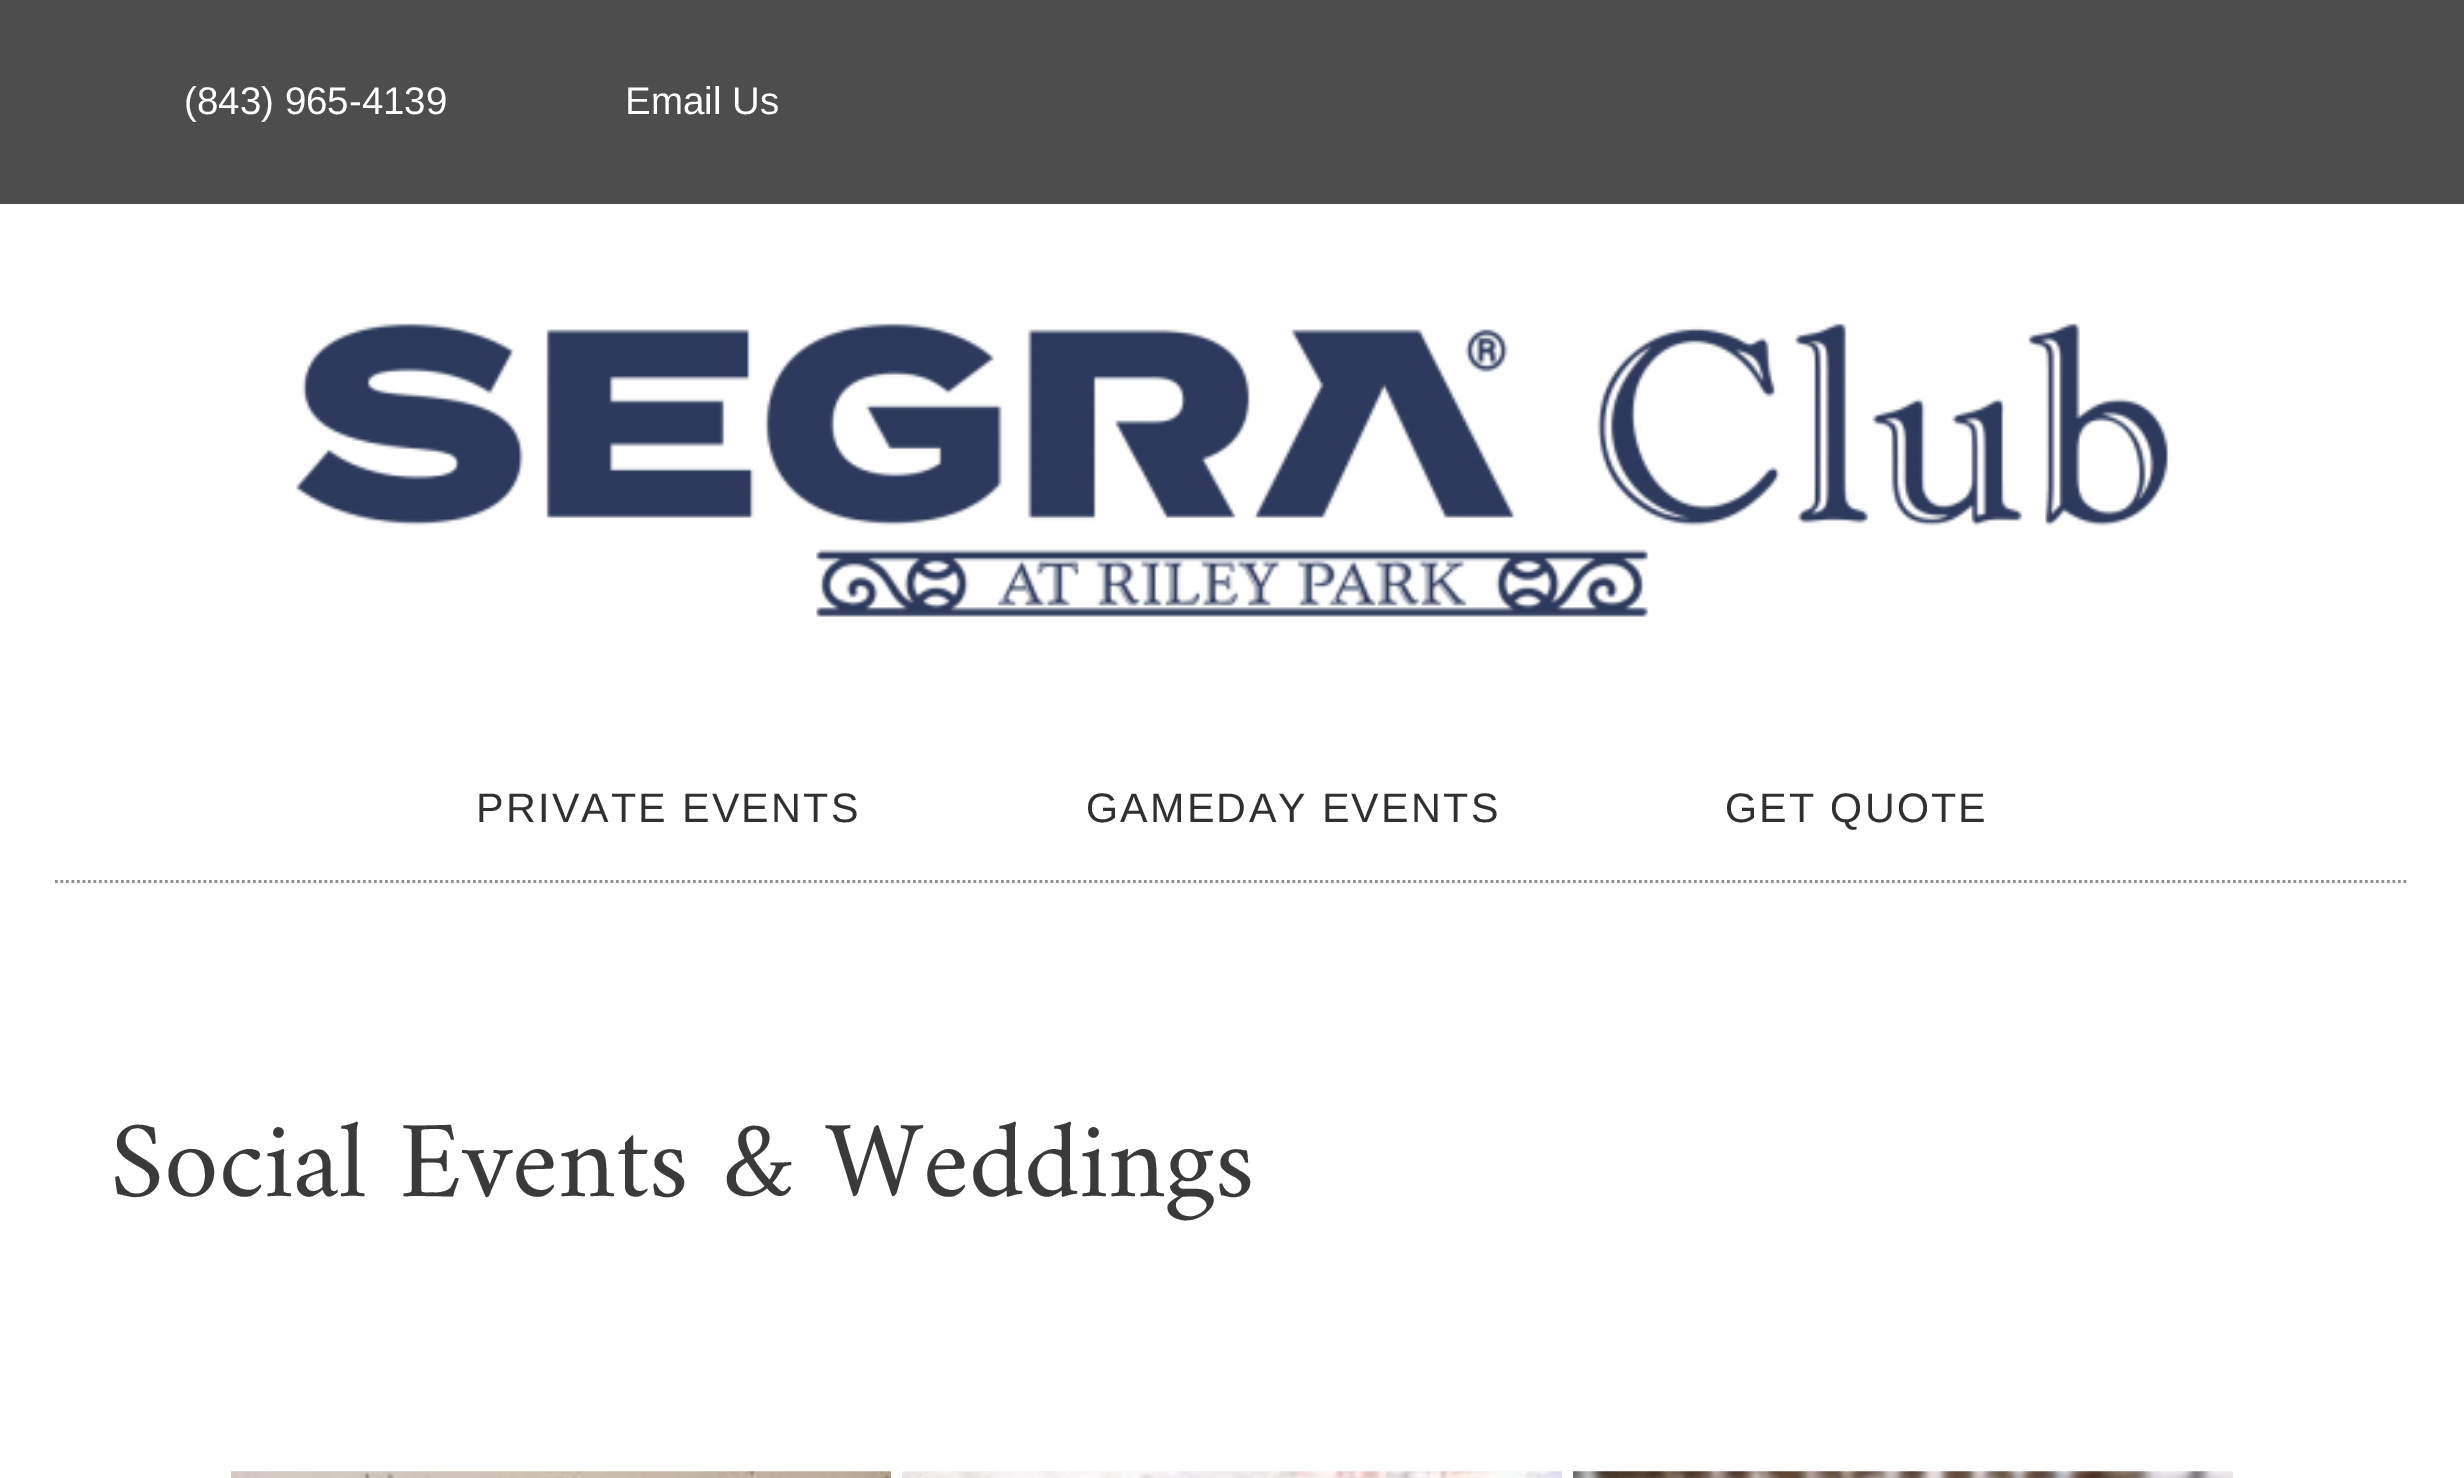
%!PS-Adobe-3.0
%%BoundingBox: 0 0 2464 1478
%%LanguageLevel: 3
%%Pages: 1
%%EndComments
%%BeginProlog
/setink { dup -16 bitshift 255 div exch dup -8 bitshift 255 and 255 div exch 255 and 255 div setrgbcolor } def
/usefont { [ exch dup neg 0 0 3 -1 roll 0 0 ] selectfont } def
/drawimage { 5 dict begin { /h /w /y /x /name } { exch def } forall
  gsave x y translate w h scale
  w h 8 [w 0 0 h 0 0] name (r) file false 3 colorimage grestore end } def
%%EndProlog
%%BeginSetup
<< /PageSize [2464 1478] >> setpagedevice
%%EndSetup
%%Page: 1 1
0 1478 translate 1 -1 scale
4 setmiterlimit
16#FFFFFF setink
0 0 2464 1478 rectfill
16#4D4D4D setink
0 0 2464 204 rectfill
/LiberationSans-Regular 38.5 usefont
16#FFFFFF setink
184 114 moveto (\(843\) 965-4139) show
625 114 moveto (Email Us) show
(img1.raw) 296 323 1874 294 drawimage
16#8E8E8E setink
2.8 setlinewidth
[2.75 2.75] 0 setdash
55 881.5 moveto 2409 881.5 lineto stroke
/LiberationSans-Regular 41.25 usefont
16#303030 setink
476 822 moveto 2.25 0 (PRIVATE EVENTS) ashow
1086 822 moveto 2.25 0 (GAMEDAY EVENTS) ashow
1725 822 moveto 2.25 0 (GET QUOTE) ashow
/Amiri-Regular 110 usefont
16#3A3A3A setink
110 1196 moveto (Social Events & Weddings) show
(img2.raw) 231 1471 660 7 drawimage
(img3.raw) 902 1471 660 7 drawimage
(img4.raw) 1573 1471 660 7 drawimage
showpage
%%EOF
